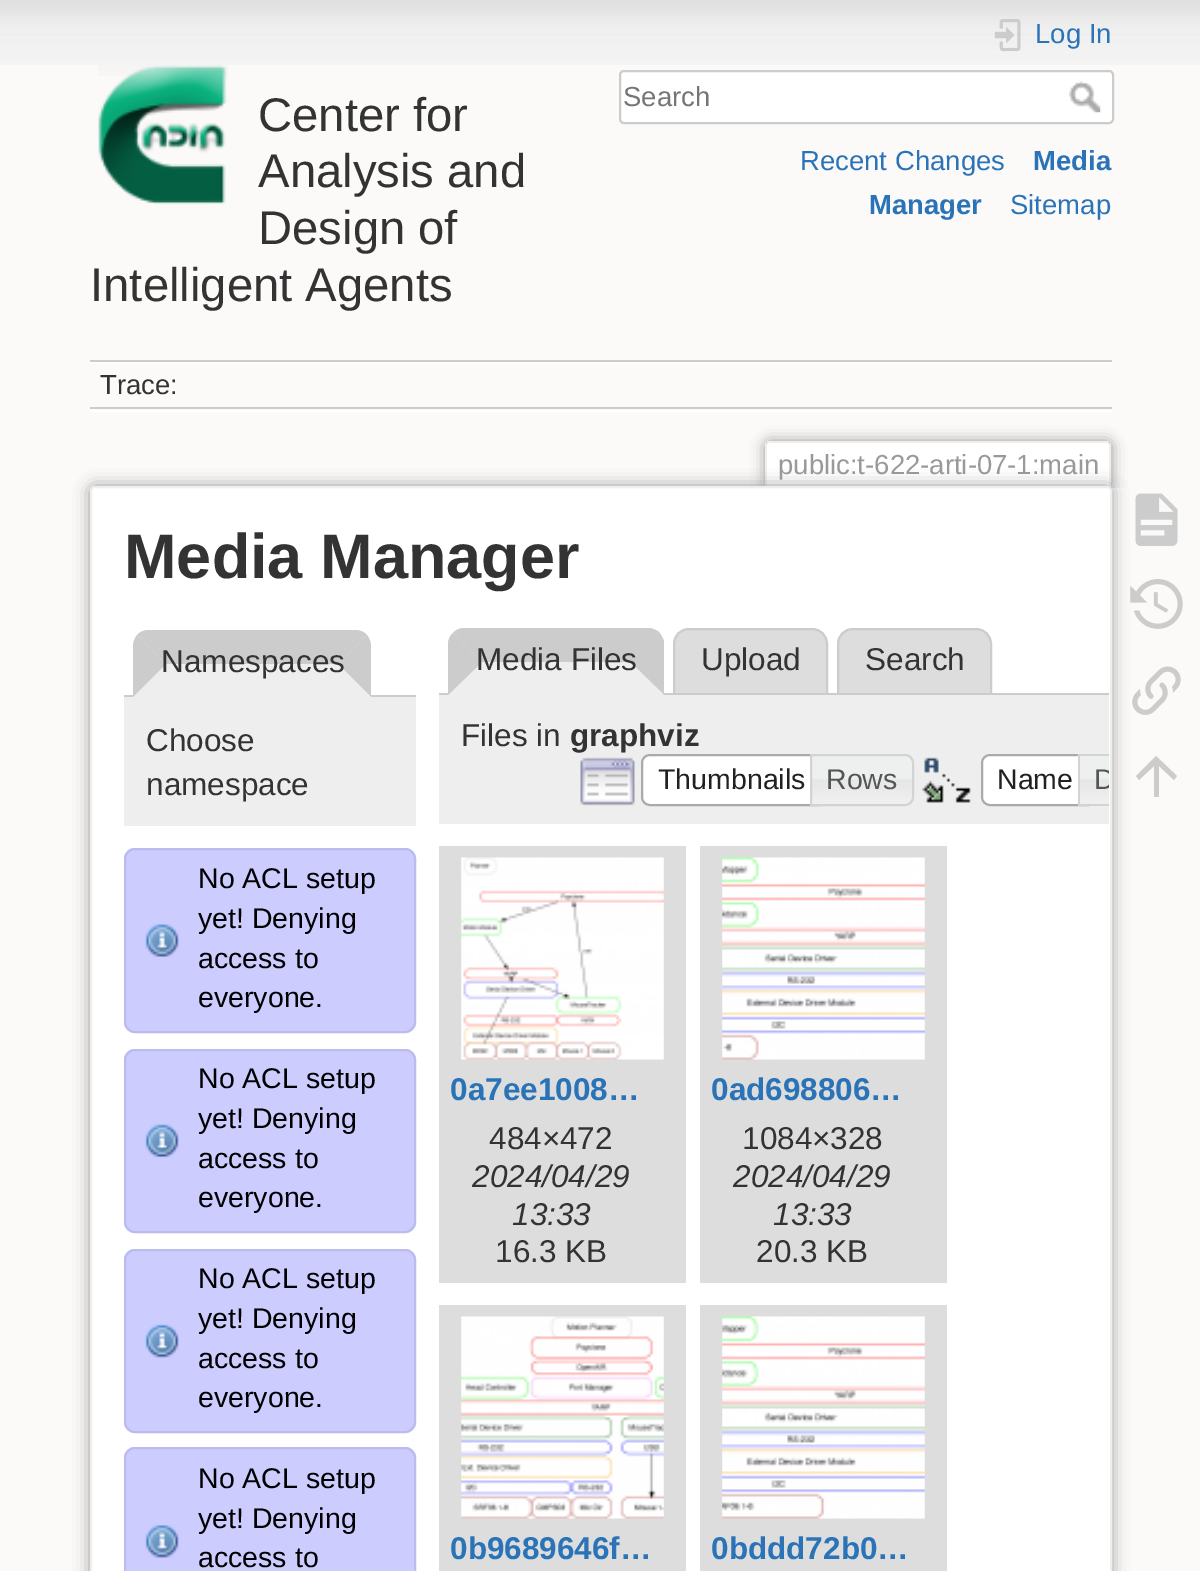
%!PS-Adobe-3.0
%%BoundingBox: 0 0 1200 1571
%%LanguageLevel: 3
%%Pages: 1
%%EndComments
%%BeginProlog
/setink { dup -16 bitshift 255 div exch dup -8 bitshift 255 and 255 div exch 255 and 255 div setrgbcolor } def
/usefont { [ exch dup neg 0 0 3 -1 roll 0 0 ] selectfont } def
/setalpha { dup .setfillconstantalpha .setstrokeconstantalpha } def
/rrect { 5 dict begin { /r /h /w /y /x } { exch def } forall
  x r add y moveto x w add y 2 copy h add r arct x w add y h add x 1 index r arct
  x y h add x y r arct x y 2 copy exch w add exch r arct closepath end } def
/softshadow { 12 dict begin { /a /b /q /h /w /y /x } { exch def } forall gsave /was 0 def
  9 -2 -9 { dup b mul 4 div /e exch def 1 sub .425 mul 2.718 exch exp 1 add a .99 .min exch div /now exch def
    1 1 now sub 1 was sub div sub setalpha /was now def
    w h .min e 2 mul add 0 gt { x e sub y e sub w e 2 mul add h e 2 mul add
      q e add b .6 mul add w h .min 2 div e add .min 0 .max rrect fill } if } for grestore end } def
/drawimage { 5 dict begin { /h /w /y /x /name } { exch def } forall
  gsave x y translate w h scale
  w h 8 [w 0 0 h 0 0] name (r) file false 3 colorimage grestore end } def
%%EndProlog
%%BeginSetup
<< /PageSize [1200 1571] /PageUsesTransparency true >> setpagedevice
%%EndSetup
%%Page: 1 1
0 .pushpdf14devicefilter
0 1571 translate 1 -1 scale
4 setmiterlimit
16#FBFAF9 setink
0 0 1200 1571 rectfill
(img1.raw) 0 0 1200 65 drawimage
(img2.raw) 98 65 130 140 drawimage
/LiberationSans-Regular 47.25 usefont
16#333333 setink
[
    [(Center for) 258 131]
    [(Analysis and) 258 187]
    [(Design of) 258 244]
    [(Intelligent Agents) 90 301]
] { aload pop moveto show } forall
(img3.raw) 994 19 27 33 drawimage
/LiberationSans-Regular 27.5 usefont
16#2B73B7 setink
1035 43 moveto (Log In) show
16#FFFFFF setink
620 71 493 52 4 rrect gsave fill grestore
16#CCCCCC setink
2 setlinewidth
stroke
16#757575 setink
623 106 moveto (Search) show
(img4.raw) 1069 81 32 32 drawimage
16#2B73B7 setink
800 170 moveto (Recent Changes) show
/LiberationSans-Bold 27.5 usefont
1033 170 moveto (Media) show
869 214 moveto (Manager) show
/LiberationSans-Regular 27.5 usefont
1010 214 moveto (Sitemap) show
[
    [90 360 1022 2 16#CCCCCC]
    [90 410 1022 2 16#FFFFFF]
    [90 362 1022 2 16#FFFFFF]
    [90 407 1022 2 16#CCCCCC]
] { aload pop setink rectfill } forall
16#333333 setink
100 394 moveto (Trace:) show
gsave
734 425 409 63 rectclip
16#999999 setink
765 441 347 47 5 7 1 softshadow
grestore
16#FFFFFF setink
769 443 moveto 1107 443 lineto 1108 443 1109 444 1109 445 curveto 1109 488 lineto 767 488 lineto 767 445 lineto 767 444 768 443 769 443 curveto closepath fill
[
    [767 441 342 2 16#EEEEEE]
    [1109 443 2 45 16#EEEEEE]
    [765 443 2 45 16#EEEEEE]
] { aload pop setink rectfill } forall
16#999999 setink
778 474 moveto (public:t-622-arti-07-1:main) show
90 486 1022 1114 5 8 1 softshadow
16#FFFFFF setink
91 487 1020 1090 4 rrect gsave fill grestore
16#EEEEEE setink
stroke
/LiberationSans-Bold 63 usefont
16#333333 setink
124 578 moveto (Media Manager) show
16#EEEEEE setink
124 697 292 129 rectfill
16#CCCCCC setink
124 695 292 2 rectfill
16#EEEEEE setink
149 630 moveto 355 630 lineto 364 630 371 637 371 646 curveto 371 698 lineto 133 698 lineto 133 646 lineto 133 637 140 630 149 630 curveto closepath fill
16#CCCCCC setink
148 630 moveto 356 630 lineto 360 630 364 632 367 635 curveto 338 664 lineto 166 664 lineto 137 635 lineto 140 632 144 630 148 630 curveto closepath fill
367 635 moveto 338 664 lineto 371 697 lineto 371 646 lineto 371 642 369 638 367 635 curveto closepath fill
16#EEEEEE setink
371 697 moveto 338 664 lineto 166 664 lineto 133 698 lineto closepath fill
16#CCCCCC setink
137 635 moveto 135 638 133 642 133 646 curveto 133 697 lineto 166 664 lineto closepath fill
/LiberationSans-Regular 31.5 usefont
16#333333 setink
[
    [(Namespaces) 161 672]
    [(Choose) 146 751]
    [(namespace) 146 795]
] { aload pop moveto show } forall
16#CCCCFF setink
124 848 292 185 11 rrect fill
(img5.raw) 145 924 34 33 drawimage
16#BBBBEE setink
125 849 290 183 10 rrect stroke
/LiberationSans-Regular 28.5 usefont
16#000000 setink
[
    [(No ACL setup) 198 888]
    [(yet! Denying) 198 928]
    [(access to) 198 968]
    [(everyone.) 198 1007]
] { aload pop moveto show } forall
16#CCCCFF setink
124 1049 292 184 11 rrect fill
(img6.raw) 145 1124 34 34 drawimage
16#BBBBEE setink
125 1050 290 182 10 rrect stroke
16#000000 setink
[
    [(No ACL setup) 198 1088]
    [(yet! Denying) 198 1128]
    [(access to) 198 1168]
    [(everyone.) 198 1207]
] { aload pop moveto show } forall
16#CCCCFF setink
124 1249 292 184 11 rrect fill
(img7.raw) 145 1324 34 34 drawimage
16#BBBBEE setink
125 1250 290 182 10 rrect stroke
16#000000 setink
[
    [(No ACL setup) 198 1288]
    [(yet! Denying) 198 1328]
    [(access to) 198 1368]
    [(everyone.) 198 1407]
] { aload pop moveto show } forall
16#CCCCFF setink
124 1447 292 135 11 rrect fill
(img8.raw) 145 1525 34 33 drawimage
16#BBBBEE setink
125 1448 290 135 10 rrect stroke
16#000000 setink
[
    [(No ACL setup) 198 1488]
    [(yet! Denying) 198 1528]
    [(access to) 198 1567]
] { aload pop moveto show } forall
16#DDDDDD setink
689 629 moveto 812 629 lineto 820.5 629 827 635.5 827 644 curveto 827 694 lineto 674 694 lineto 674 644 lineto 674 635.5 680.5 629 689 629 curveto closepath gsave fill grestore
16#CCCCCC setink
stroke
16#DDDDDD setink
853 629 moveto 976 629 lineto 984.5 629 991 635.5 991 644 curveto 991 694 lineto 838 694 lineto 838 644 lineto 838 635.5 844.5 629 853 629 curveto closepath gsave fill grestore
16#CCCCCC setink
stroke
439 693 670 2 rectfill
16#EEEEEE setink
464 628 moveto 648 628 lineto 657 628 664 635 664 644 curveto 664 695 lineto 448 695 lineto 448 644 lineto 448 635 455 628 464 628 curveto closepath fill
16#CCCCCC setink
464 628 moveto 460 628 456 630 453 633 curveto 482 662 lineto 630 662 lineto 659 632 lineto 656 630 652 628 648 628 curveto closepath fill
664 695 moveto 630 662 lineto 659 632 lineto 661 635 663 638 664 641 curveto closepath fill
16#EEEEEE setink
664 695 moveto 630 662 lineto 482 662 lineto 448 695 lineto closepath fill
16#CCCCCC setink
453 633 moveto 450 636 448 640 448 644 curveto 448 695 lineto 482 662 lineto closepath fill
/LiberationSans-Regular 31.5 usefont
16#333333 setink
[
    [(Media Files) 476 670]
    [(Upload) 701 670]
    [(Search) 865 670]
] { aload pop moveto show } forall
16#EEEEEE setink
439 695 670 129 rectfill
16#333333 setink
461 746 moveto (Files in) show
/LiberationSans-Bold 31.5 usefont
570 746 moveto (graphviz) show
(img9.raw) 580 757 55 49 drawimage
16#FFFFFF setink
650 754 moveto 821 754 lineto 821 806 lineto 650 806 lineto 645 806 641 802 641 797 curveto 641 763 lineto 641 758 645 754 650 754 curveto closepath fill
16#FDFDFD setink
647 754 1 1 rectfill
16#AAAAAA setink
650 755 moveto 820 755 lineto 820 805 lineto 650 805 lineto 645.5 805 642 801.5 642 797 curveto 642 763 lineto 642 758.5 645.5 755 650 755 curveto closepath stroke
/LiberationSans-Regular 28.5 usefont
16#212121 setink
658 789 moveto (Thumbnails) show
(img10.raw) 812 754 101 50 drawimage
16#D3D3D3 setink
811 755 moveto 905 755 lineto 909.5 755 913 758.5 913 763 curveto 913 797 lineto 913 801.5 909.5 805 905 805 curveto 811 805 lineto closepath stroke
16#555555 setink
826 789 moveto (Rows) show
(img11.raw) 922 757 49 46 drawimage
16#FFFFFF setink
990 754 moveto 1089 754 lineto 1089 806 lineto 990 806 lineto 985 806 981 802 981 797 curveto 981 763 lineto 981 758 985 754 990 754 curveto closepath fill
(img12.raw) 983 754 5 3 drawimage
16#AAAAAA setink
990 755 moveto 1088 755 lineto 1088 805 lineto 990 805 lineto 985.5 805 982 801.5 982 797 curveto 982 763 lineto 982 758.5 985.5 755 990 755 curveto closepath stroke
16#212121 setink
997 789 moveto (Name) show
(img13.raw) 1077 754 33 51 drawimage
16#D3D3D3 setink
1078 754 moveto 1078 806 lineto 1109 806 lineto 1109 804 lineto 1080 804 lineto 1080 756 lineto 1109 756 lineto 1109 754 lineto closepath fill
gsave
92 488 1017 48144 2 rrect clip newpath
16#555555 setink
1094 789 moveto (D) show
grestore
16#DDDDDD setink
439 846 247 437 rectfill
(img14.raw) 461 857 203 203 drawimage
/LiberationSans-Bold 31.5 usefont
16#2B73B7 setink
450 1100 moveto (0a7ee1008…) show
/LiberationSans-Regular 31.5 usefont
16#333333 setink
489 1149 moveto (484×472) show
/LiberationSans-Italic 31.5 usefont
472 1187 moveto (2024/04/29) show
512 1225 moveto (13:33) show
/LiberationSans-Regular 31.5 usefont
495 1262 moveto (16.3 KB) show
16#DDDDDD setink
700 846 247 437 rectfill
(img15.raw) 722 857 203 203 drawimage
/LiberationSans-Bold 31.5 usefont
16#2B73B7 setink
711 1100 moveto (0ad698806…) show
/LiberationSans-Regular 31.5 usefont
16#333333 setink
742 1149 moveto (1084×328) show
/LiberationSans-Italic 31.5 usefont
733 1187 moveto (2024/04/29) show
773 1225 moveto (13:33) show
/LiberationSans-Regular 31.5 usefont
756 1262 moveto (20.3 KB) show
16#DDDDDD setink
439 1305 247 266 rectfill
(img16.raw) 461 1316 203 203 drawimage
/LiberationSans-Bold 31.5 usefont
16#2B73B7 setink
450 1559 moveto (0b9689646f…) show
16#DDDDDD setink
700 1305 247 266 rectfill
(img17.raw) 722 1316 203 203 drawimage
16#2B73B7 setink
711 1559 moveto (0bddd72b0…) show
(img18.raw) 1135 493 43 53 drawimage
(img19.raw) 1130 579 53 50 drawimage
(img20.raw) 1132 666 49 49 drawimage
16#CCCCCC setink
1159 797 moveto 1154 797 lineto 1154 766 lineto 1139 780 lineto 1136 776 lineto 1156 756 lineto 1177 776 lineto 1174 780 lineto 1159 766 lineto closepath fill
.poppdf14devicefilter showpage
%%EOF
